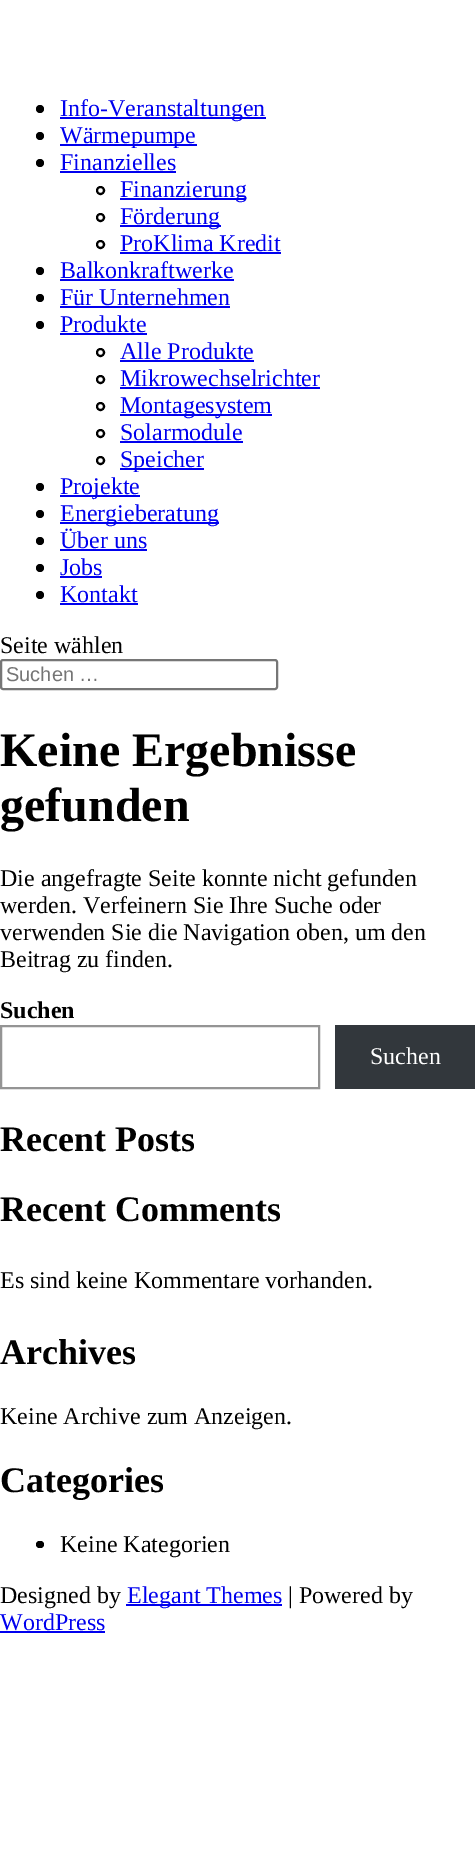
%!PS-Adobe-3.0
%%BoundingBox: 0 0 475 1850
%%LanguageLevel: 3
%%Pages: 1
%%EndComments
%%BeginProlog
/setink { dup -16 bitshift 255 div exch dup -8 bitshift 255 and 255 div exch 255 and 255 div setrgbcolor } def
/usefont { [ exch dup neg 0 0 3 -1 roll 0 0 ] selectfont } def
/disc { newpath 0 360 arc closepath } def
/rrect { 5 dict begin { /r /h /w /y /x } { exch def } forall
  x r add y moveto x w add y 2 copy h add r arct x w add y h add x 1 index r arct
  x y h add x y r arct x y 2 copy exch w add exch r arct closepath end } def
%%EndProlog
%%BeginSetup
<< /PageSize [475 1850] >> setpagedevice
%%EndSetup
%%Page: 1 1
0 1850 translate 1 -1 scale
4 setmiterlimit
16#FFFFFF setink
0 0 475 1850 rectfill
16#000000 setink
40 109 4 disc fill
16#0000EE setink
60 117 206 2 rectfill
/LiberationSerif-Regular 24 usefont
60 116 moveto (Info-Veranstaltungen) show
16#000000 setink
40 136 4 disc fill
16#0000EE setink
60 144 137 2 rectfill
60 143 moveto (Wärmepumpe) show
16#000000 setink
40 163 4 disc fill
16#0000EE setink
60 170 moveto (Finanzielles) show
60 171 116 2 rectfill
16#000000 setink
2 setlinewidth
100.5 190.5 3.5 disc stroke
16#0000EE setink
120 198 126 2 rectfill
120 197 moveto (Finanzierung) show
16#000000 setink
100.5 217.5 3.5 disc stroke
16#0000EE setink
120 225 101 2 rectfill
120 224 moveto (Förderung) show
16#000000 setink
100.5 244.5 3.5 disc stroke
16#0000EE setink
120 251 moveto (ProKlima Kredit) show
120 252 161 2 rectfill
16#000000 setink
40 271 4 disc fill
16#0000EE setink
60 278 moveto (Balkonkraftwerke) show
60 279 174 2 rectfill
16#000000 setink
40 298 4 disc fill
16#0000EE setink
60 305 moveto (Für Unternehmen) show
60 306 170 2 rectfill
16#000000 setink
40 325 4 disc fill
16#0000EE setink
60 332 moveto (Produkte) show
60 333 87 2 rectfill
16#000000 setink
100.5 352.5 3.5 disc stroke
16#0000EE setink
120 359 moveto (Alle Produkte) show
120 360 134 2 rectfill
16#000000 setink
100.5 379.5 3.5 disc stroke
16#0000EE setink
120 386 moveto (Mikrowechselrichter) show
120 387 200 2 rectfill
16#000000 setink
100.5 406.5 3.5 disc stroke
16#0000EE setink
120 414 152 2 rectfill
120 413 moveto (Montagesystem) show
16#000000 setink
100.5 433.5 3.5 disc stroke
16#0000EE setink
120 440 moveto (Solarmodule) show
120 441 123 2 rectfill
16#000000 setink
100.5 460.5 3.5 disc stroke
16#0000EE setink
120 468 84 2 rectfill
120 467 moveto (Speicher) show
16#000000 setink
40 487 4 disc fill
16#0000EE setink
60 495 80 2 rectfill
60 494 moveto (Projekte) show
16#000000 setink
40 514 4 disc fill
16#0000EE setink
60 522 159 2 rectfill
60 521 moveto (Energieberatung) show
16#000000 setink
40 541 4 disc fill
16#0000EE setink
60 548 moveto (Über uns) show
60 549 87 2 rectfill
16#000000 setink
40 568 4 disc fill
16#0000EE setink
60 575 moveto (Jobs) show
60 576 42 2 rectfill
16#000000 setink
40 595 4 disc fill
16#0000EE setink
60 602 moveto (Kontakt) show
60 603 78 2 rectfill
16#000000 setink
0 653 moveto (Seite wählen) show
16#767676 setink
1 660 276 29 2 rrect stroke
/LiberationSans-Regular 20 usefont
16#757575 setink
6 681 moveto (Suchen …) show
/LiberationSerif-Bold 48 usefont
16#000000 setink
0 766 moveto (Keine Ergebnisse) show
0 821 moveto (gefunden) show
/LiberationSerif-Regular 24 usefont
[
    [(Die angefragte Seite konnte nicht gefunden) 0 886]
    [(werden. Verfeinern Sie Ihre Suche oder) 0 913]
    [(verwenden Sie die Navigation oben, um den) 0 940]
    [(Beitrag zu finden.) 0 967]
] { aload pop moveto show } forall
/LiberationSerif-Bold 24 usefont
0 1018 moveto (Suchen) show
16#949494 setink
1 1026 318 62 rectstroke
16#32373C setink
335 1025 140 64 rectfill
/LiberationSerif-Regular 24 usefont
16#FFFFFF setink
370 1064 moveto (Suchen) show
/LiberationSerif-Bold 36 usefont
16#000000 setink
0 1151 moveto (Recent Posts) show
0 1221 moveto (Recent Comments) show
/LiberationSerif-Regular 24 usefont
0 1288 moveto (Es sind keine Kommentare vorhanden.) show
/LiberationSerif-Bold 36 usefont
0 1364 moveto (Archives) show
/LiberationSerif-Regular 24 usefont
0 1424 moveto (Keine Archive zum Anzeigen.) show
/LiberationSerif-Bold 36 usefont
0 1492 moveto (Categories) show
36 1541 8 7 3.5 rrect fill
/LiberationSerif-Regular 24 usefont
60 1552 moveto (Keine Kategorien) show
0 1603 moveto (Designed by) show
16#0000EE setink
126 1604 156 2 rectfill
127 1603 moveto (Elegant Themes) show
16#000000 setink
288 1603 moveto (| Powered by) show
16#0000EE setink
0 1630 moveto (WordPress) show
0 1631 105 2 rectfill
showpage
%%EOF
